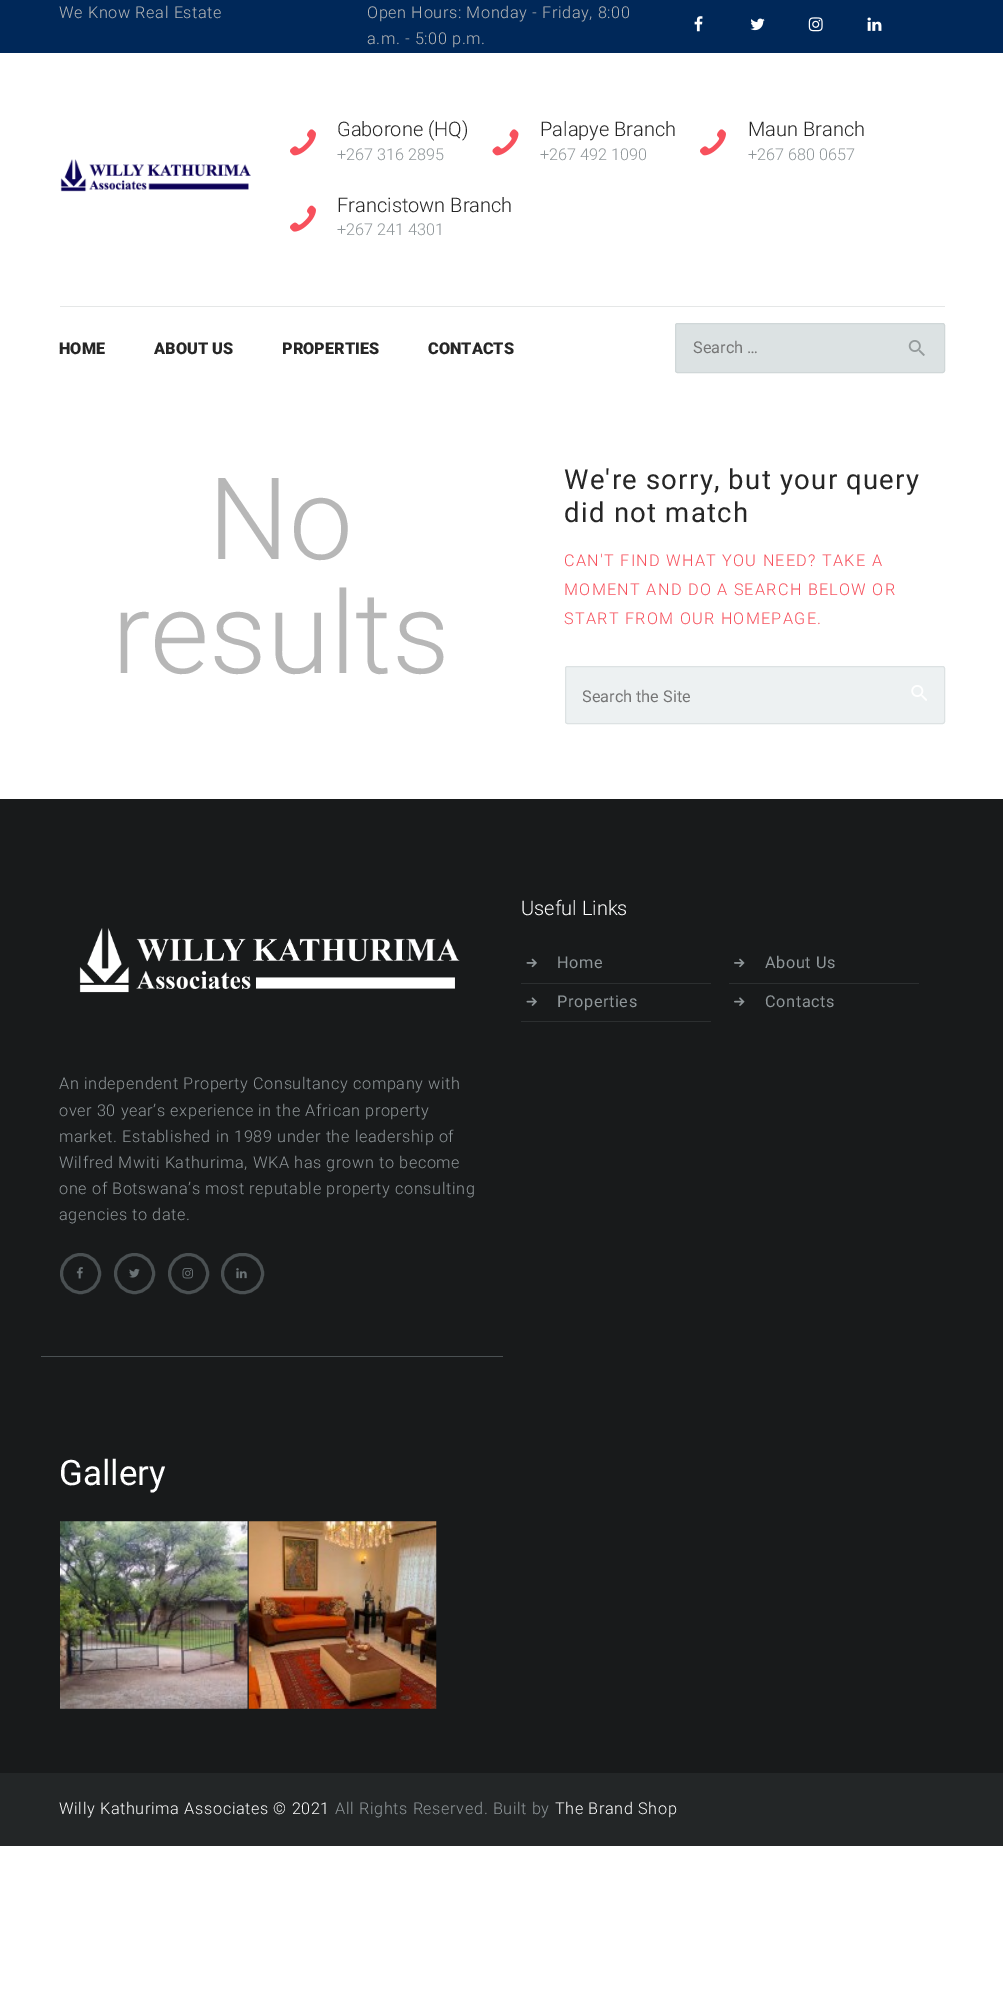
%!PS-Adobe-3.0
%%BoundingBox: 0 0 1003 2006
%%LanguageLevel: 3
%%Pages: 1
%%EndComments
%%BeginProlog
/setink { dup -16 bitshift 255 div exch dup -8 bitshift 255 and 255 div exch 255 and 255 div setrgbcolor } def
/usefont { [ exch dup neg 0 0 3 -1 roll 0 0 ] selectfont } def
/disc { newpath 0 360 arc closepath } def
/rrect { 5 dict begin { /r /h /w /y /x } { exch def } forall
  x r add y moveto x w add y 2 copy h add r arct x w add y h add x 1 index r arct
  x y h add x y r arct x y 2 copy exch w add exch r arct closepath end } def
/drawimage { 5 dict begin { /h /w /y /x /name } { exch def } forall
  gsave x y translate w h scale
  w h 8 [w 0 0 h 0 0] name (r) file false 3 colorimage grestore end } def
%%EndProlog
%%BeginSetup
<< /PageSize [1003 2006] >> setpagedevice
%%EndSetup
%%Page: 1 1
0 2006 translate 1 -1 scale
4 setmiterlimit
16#FFFFFF setink
0 0 1003 2006 rectfill
16#002859 setink
0 0 1003 53 rectfill
/Roboto-Light 16.25 usefont
16#B7B7B7 setink
59 18 moveto 0.62 0 (We Know Real Estate) ashow
367 18 moveto 0.62 0 (Open Hours: Monday - Friday, 8:00) ashow
367 44 moveto 0.62 0 (a.m. - 5:00 p.m.) ashow
(img1.raw) 694 16 9 16 drawimage
(img2.raw) 750 18 15 13 drawimage
(img3.raw) 808 17 15 15 drawimage
(img4.raw) 867 17 15 14 drawimage
(img5.raw) 60 159 191 33 drawimage
(img6.raw) 290 129 26 27 drawimage
/Roboto-Light 20 usefont
16#262626 setink
337 136 moveto (Gaborone \(HQ\)) show
/Roboto-Light 16.25 usefont
16#8F9699 setink
337 160 moveto (+267 316 2895) show
(img7.raw) 492 129 27 27 drawimage
/Roboto-Light 20 usefont
16#262626 setink
540 136 moveto (Palapye Branch) show
/Roboto-Light 16.25 usefont
16#8F9699 setink
540 160 moveto (+267 492 1090) show
(img6.raw) 700 129 26 27 drawimage
/Roboto-Light 20 usefont
16#262626 setink
748 136 moveto (Maun Branch) show
/Roboto-Light 16.25 usefont
16#8F9699 setink
748 160 moveto (+267 680 0657) show
(img8.raw) 290 205 26 27 drawimage
/Roboto-Light 20 usefont
16#262626 setink
337 212 moveto (Francistown Branch) show
/Roboto-Light 16.25 usefont
16#8F9699 setink
337 235 moveto (+267 241 4301) show
16#E5E7E7 setink
60 306 885 1 rectfill
/Roboto-Black 16.25 usefont
16#262626 setink
[
    [(HOME) 59 354]
    [(ABOUT US) 154 354]
    [(PROPERTIES) 282 354]
    [(CONTACTS) 428 354]
] { aload pop moveto show } forall
16#DCE2E3 setink
675.5 323.5 269 49 2 rrect gsave fill grestore
16#D0D7D8 setink
stroke
/Roboto-Regular 16.25 usefont
16#757575 setink
693 353 moveto (Search …) show
(img9.raw) 908 340 17 16 drawimage
/Roboto-Light 114 usefont
16#B7B7B7 setink
208 559 moveto (No) show
112 673 moveto (results) show
/Roboto-Regular 27.5 usefont
16#262626 setink
564 489 moveto 1.25 0 (We're sorry, but your query) ashow
564 522 moveto 1.25 0 (did not match) ashow
/Roboto-Light 16.25 usefont
16#F7505C setink
564 566 moveto 1.25 0 (CAN'T FIND WHAT YOU NEED? TAKE A) ashow
564 595 moveto 1.25 0 (MOMENT AND DO A SEARCH BELOW OR) ashow
564 624 moveto 1.25 0 (START FROM OUR HOMEPAGE.) ashow
16#EDF1F2 setink
565.5 666.5 379 57 2 rrect gsave fill grestore
16#DDE2E3 setink
stroke
gsave
583 686 312 19 rectclip
/Roboto-Regular 16.25 usefont
16#757575 setink
582 702 moveto (Search the Site) show
grestore
(img10.raw) 911 685 16 16 drawimage
16#181A1B setink
0 799 1003 974 rectfill
/Roboto-Light 20 usefont
16#FFFFFF setink
521 915 moveto (Useful Links) show
16#2C2F30 setink
521 983 190 1 rectfill
(img11.raw) 526 958 11 10 drawimage
/Roboto-Regular 16.25 usefont
16#8F9699 setink
557 968 moveto 0.62 0 (Home) ashow
16#2C2F30 setink
729 983 190 1 rectfill
(img12.raw) 734 958 11 10 drawimage
16#8F9699 setink
765 968 moveto 0.62 0 (About Us) ashow
16#2C2F30 setink
521 1021 190 1 rectfill
(img13.raw) 526 997 11 9 drawimage
16#8F9699 setink
557 1007 moveto 0.62 0 (Properties) ashow
(img14.raw) 734 997 11 9 drawimage
765 1007 moveto 0.62 0 (Contacts) ashow
(img15.raw) 79 928 381 65 drawimage
/Roboto-Light 16.25 usefont
59 1089 moveto 0.62 0 (An independent Property Consultancy company with) ashow
59 1116 moveto 0.62 0 (over 30 year’s experience in the African property) ashow
59 1142 moveto 0.62 0 (market. Established in 1989 under the leadership of) ashow
59 1168 moveto 0.62 0 (Wilfred Mwiti Kathurima, WKA has grown to become) ashow
59 1194 moveto 0.62 0 (one of Botswana’s most reputable property consulting) ashow
59 1220 moveto 0.62 0 (agencies to date.) ashow
16#4A5052 setink
3 setlinewidth
80.5 1273.5 19 disc stroke
(img16.raw) 76 1267 7 12 drawimage
134.5 1273.5 19 disc stroke
(img17.raw) 129 1268 11 10 drawimage
188.5 1273.5 19 disc stroke
(img18.raw) 182 1268 11 11 drawimage
222.5 1254.5 40 38 19 rrect stroke
(img19.raw) 236 1268 11 11 drawimage
41 1356 462 1 rectfill
/Roboto-Regular 35 usefont
16#FFFFFF setink
59 1485 moveto (Gallery) show
(img20.raw) 60 1521 188 188 drawimage
(img21.raw) 248 1521 189 188 drawimage
16#232627 setink
0 1773 1003 73 rectfill
/Roboto-Light 16.25 usefont
16#FFFFFF setink
59 1814 moveto 0.62 0 (Willy Kathurima Associates © 2021) ashow
16#8F9699 setink
335 1814 moveto 0.62 0 (All Rights Reserved. Built by) ashow
16#FFFFFF setink
555 1814 moveto 0.62 0 (The Brand Shop) ashow
showpage
%%EOF
